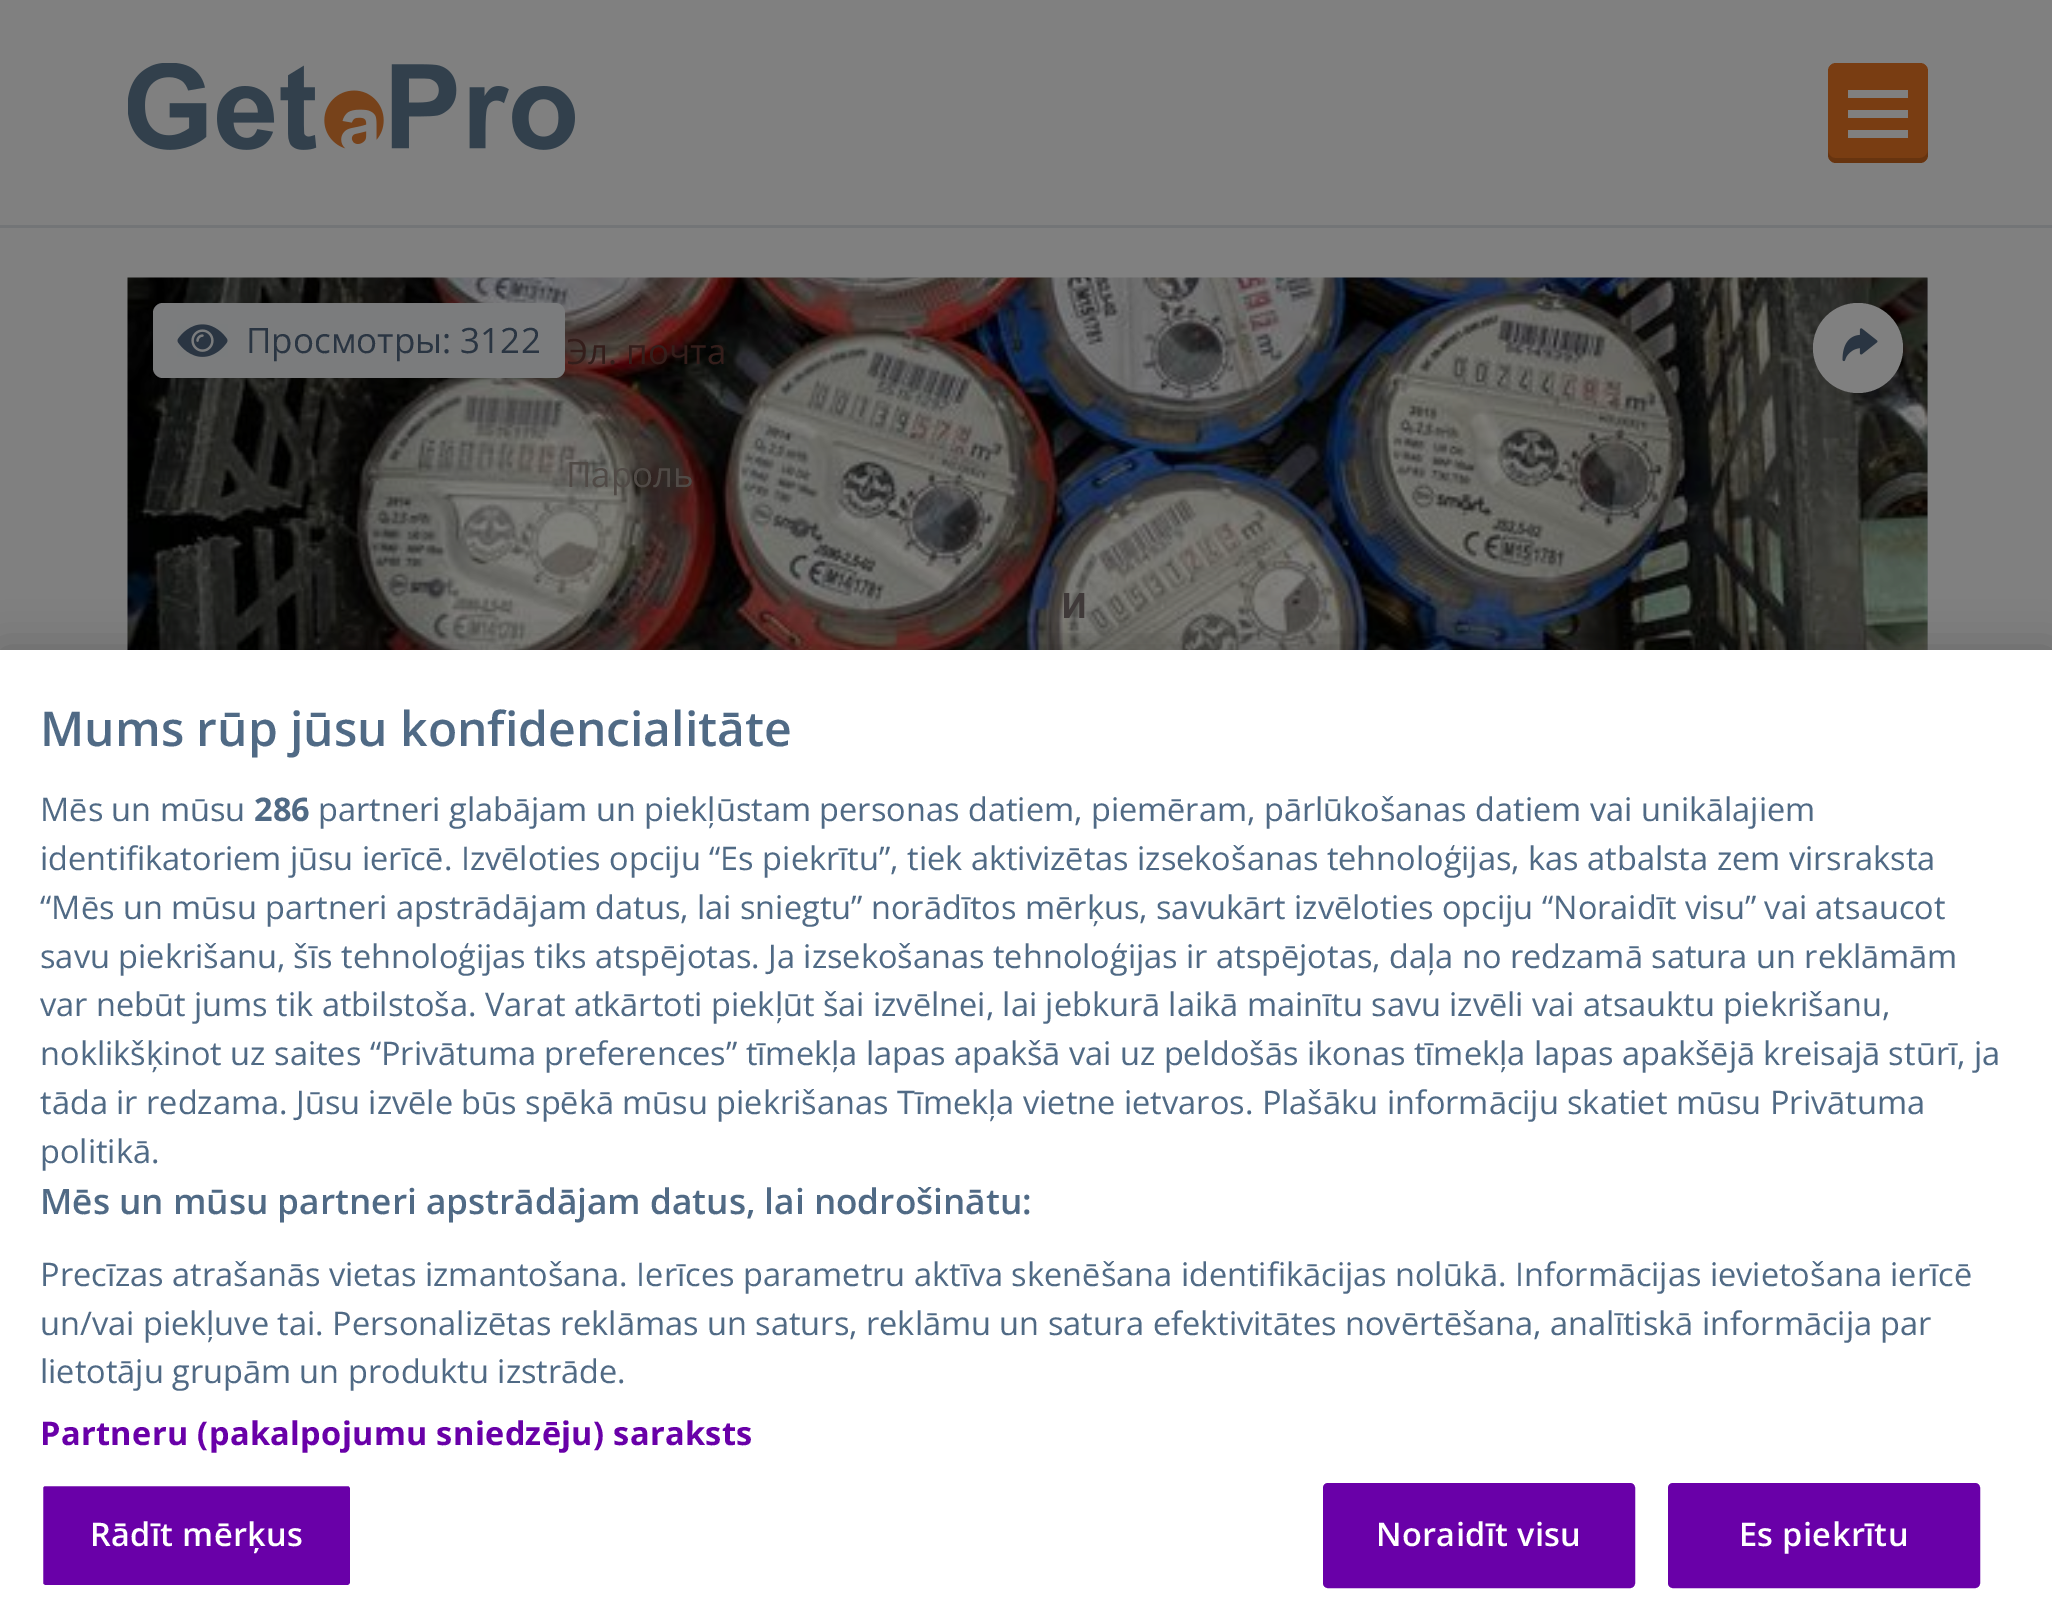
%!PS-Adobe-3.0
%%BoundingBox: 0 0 2052 1623
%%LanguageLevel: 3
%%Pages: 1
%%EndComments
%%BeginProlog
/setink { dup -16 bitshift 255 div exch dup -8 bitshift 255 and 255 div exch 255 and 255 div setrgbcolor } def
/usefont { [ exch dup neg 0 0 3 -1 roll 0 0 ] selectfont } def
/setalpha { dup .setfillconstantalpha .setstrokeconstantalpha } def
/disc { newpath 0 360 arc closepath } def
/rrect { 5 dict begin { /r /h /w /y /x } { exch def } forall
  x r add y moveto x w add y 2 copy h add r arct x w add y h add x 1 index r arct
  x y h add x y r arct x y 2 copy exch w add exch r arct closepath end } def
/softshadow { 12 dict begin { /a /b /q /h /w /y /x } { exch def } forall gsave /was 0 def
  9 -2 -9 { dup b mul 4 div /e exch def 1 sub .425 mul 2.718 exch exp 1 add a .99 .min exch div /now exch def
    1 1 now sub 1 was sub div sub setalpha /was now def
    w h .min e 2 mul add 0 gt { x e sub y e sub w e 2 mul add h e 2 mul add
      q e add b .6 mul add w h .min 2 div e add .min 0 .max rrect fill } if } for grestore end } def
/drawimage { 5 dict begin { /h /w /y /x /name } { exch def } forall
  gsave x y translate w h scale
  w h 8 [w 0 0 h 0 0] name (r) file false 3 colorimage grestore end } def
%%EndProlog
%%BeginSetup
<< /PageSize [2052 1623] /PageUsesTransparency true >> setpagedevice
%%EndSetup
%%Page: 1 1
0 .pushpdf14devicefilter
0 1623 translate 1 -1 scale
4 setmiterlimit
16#808080 setink
0 0 2052 1623 rectfill
16#737577 setink
0 225 2052 3 rectfill
(img1.raw) 128 63 447 87 drawimage
16#793D12 setink
1828 63 100 100 8 rrect fill
0.15 setalpha
16#000000 setink
1828 150 moveto 1828 155 lineto 1828 159 1832 163 1836 163 curveto 1920 163 lineto 1924 163 1928 159 1928 155 curveto 1928 150 lineto 1928 154 1924 158 1920 158 curveto 1835 158 lineto 1831 158 1828 154 1828 150 curveto closepath fill
1 setalpha
[
    [1848 90 60 8 16#808080]
    [1848 110 60 8 16#808080]
    [1848 130 60 8 16#808080]
    [1927 278 1 372 16#6F7174]
] { aload pop setink rectfill } forall
(img2.raw) 127 277 1801 373 drawimage
16#7B7C7D setink
153 303 412 75 10 rrect fill
(img3.raw) 177 324 51 33 drawimage
/OpenSans-Regular 35 usefont
16#2A3542 setink
246 353 moveto (Просмотры: 3122) show
16#808080 setink
1858 348 45 disc fill
(img4.raw) 1842 328 36 34 drawimage
gsave
568 328 920 47 rectclip
16#341E1B setink
566 364 moveto (Эл. почта) show
grestore
16#504A46 setink
566 487 moveto (Пароль) show
/Roboto-Bold 35 usefont
16#3F3939 setink
1062 618 moveto 1 0 (И) ashow
16#000000 setink
0 650 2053 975 0 22.5 0.2 softshadow
16#FFFFFF setink
0 650 2052 973 rectfill
/OpenSans-SemiBold 48 usefont
16#506A85 setink
40 746 moveto (Mums rūp jūsu konfidencialitāte) show
/OpenSans-Regular 32.52 usefont
40 821 moveto (Mēs un mūsu) show
/OpenSans-Bold 32.52 usefont
254 821 moveto (286) show
/OpenSans-Regular 32.52 usefont
[
    [(partneri glabājam un piekļūstam personas datiem, piemēram, pārlūkošanas datiem vai unikālajiem) 318 821]
    [(identifikatoriem jūsu ierīcē. Izvēloties opciju “Es piekrītu”, tiek aktivizētas izsekošanas tehnoloģijas, kas atbalsta zem virsraksta) 40 870]
    [(“Mēs un mūsu partneri apstrādājam datus, lai sniegtu” norādītos mērķus, savukārt izvēloties opciju “Noraidīt visu” vai atsaucot) 40 919]
    [(savu piekrišanu, šīs tehnoloģijas tiks atspējotas. Ja izsekošanas tehnoloģijas ir atspējotas, daļa no redzamā satura un reklāmām) 40 968]
    [(var nebūt jums tik atbilstoša. Varat atkārtoti piekļūt šai izvēlnei, lai jebkurā laikā mainītu savu izvēli vai atsauktu piekrišanu,) 40 1016]
    [(noklikšķinot uz saites “Privātuma preferences” tīmekļa lapas apakšā vai uz peldošās ikonas tīmekļa lapas apakšējā kreisajā stūrī, ja) 40 1065]
    [(tāda ir redzama. Jūsu izvēle būs spēkā mūsu piekrišanas Tīmekļa vietne ietvaros. Plašāku informāciju skatiet mūsu Privātuma) 40 1114]
    [(politikā.) 40 1163]
] { aload pop moveto show } forall
/OpenSans-SemiBold 35.2 usefont
40 1214 moveto (Mēs un mūsu partneri apstrādājam datus, lai nodrošinātu:) show
/OpenSans-Regular 32.52 usefont
[
    [(Precīzas atrašanās vietas izmantošana. Ierīces parametru aktīva skenēšana identifikācijas nolūkā. Informācijas ievietošana ierīcē) 40 1286]
    [(un/vai piekļuve tai. Personalizētas reklāmas un saturs, reklāmu un satura efektivitātes novērtēšana, analītiskā informācija par) 40 1335]
    [(lietotāju grupām un produktu izstrāde.) 40 1383]
] { aload pop moveto show } forall
/OpenSans-Bold 32.52 usefont
16#6900A8 setink
40 1445 moveto 0.35 0 (Partneru \(pakalpojumu sniedzēju\) saraksts) ashow
41.5 1484.5 310 102 3.5 rrect gsave fill grestore
16#FFFFFF setink
3 setlinewidth
stroke
/OpenSans-SemiBold 32.52 usefont
90 1546 moveto 0.35 0 (Rādīt mērķus) ashow
16#6900A8 setink
1324.5 1484.5 309 102 3.5 rrect gsave fill grestore
stroke
16#FFFFFF setink
1376 1546 moveto 0.35 0 (Noraidīt visu) ashow
16#6900A8 setink
1669.5 1484.5 309 102 3.5 rrect gsave fill grestore
stroke
16#FFFFFF setink
1739 1546 moveto 0.35 0 (Es piekrītu) ashow
.poppdf14devicefilter showpage
%%EOF
